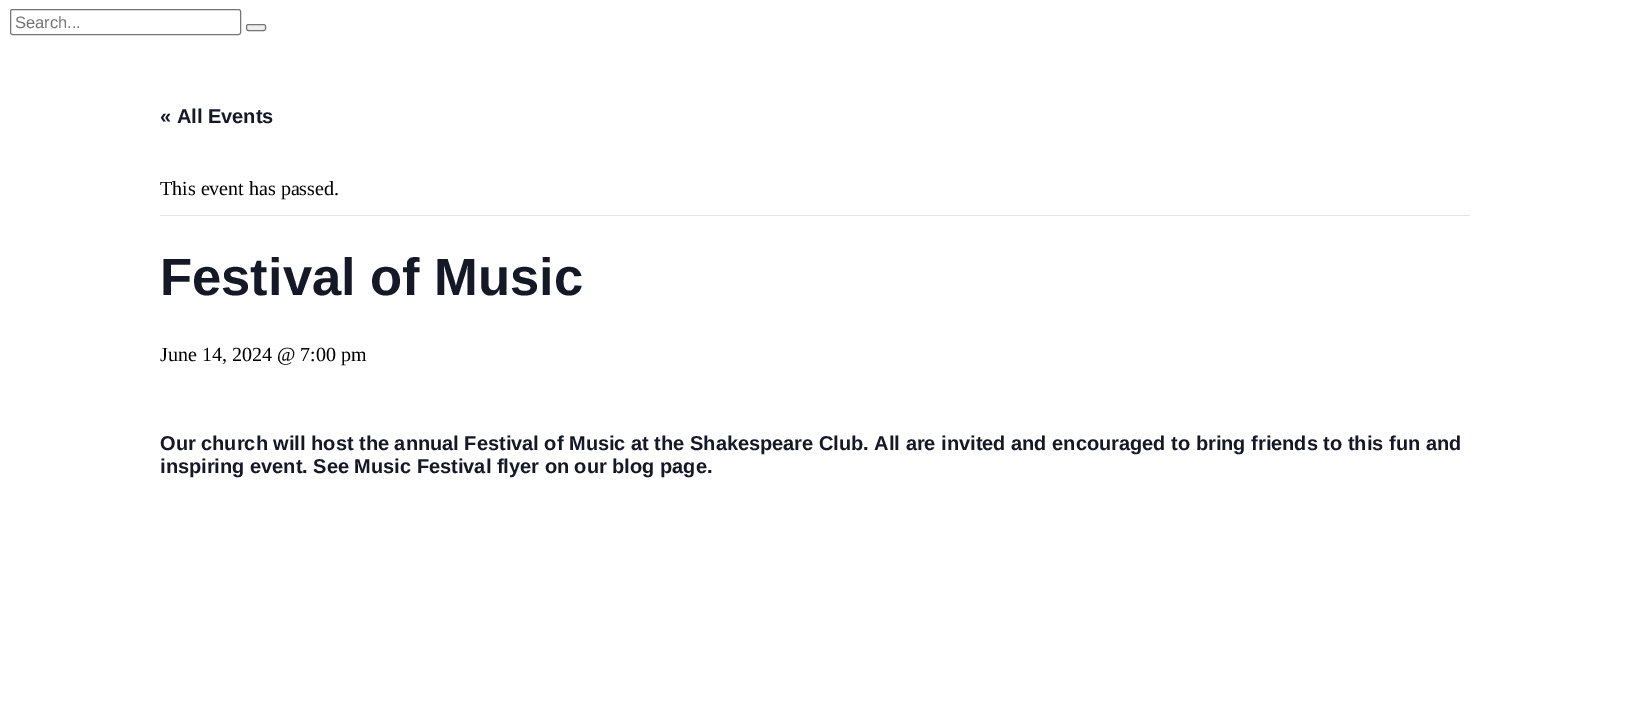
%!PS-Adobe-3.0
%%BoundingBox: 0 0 1630 718
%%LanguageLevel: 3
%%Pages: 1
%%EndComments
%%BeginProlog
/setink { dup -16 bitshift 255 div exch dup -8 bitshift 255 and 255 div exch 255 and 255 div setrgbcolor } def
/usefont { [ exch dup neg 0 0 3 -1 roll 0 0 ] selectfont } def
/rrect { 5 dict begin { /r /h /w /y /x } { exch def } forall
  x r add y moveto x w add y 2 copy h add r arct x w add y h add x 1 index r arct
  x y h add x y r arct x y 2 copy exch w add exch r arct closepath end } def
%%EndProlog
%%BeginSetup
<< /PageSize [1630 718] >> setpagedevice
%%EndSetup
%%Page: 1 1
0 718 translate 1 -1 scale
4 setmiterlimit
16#FFFFFF setink
0 0 1630 718 rectfill
16#767676 setink
10.5 9.5 230 25 2 rrect stroke
/LiberationSans-Regular 16.5 usefont
16#757575 setink
15 28 moveto (Search...) show
16#EFEFEF setink
246.5 24.5 19 6 2 rrect gsave fill grestore
16#767676 setink
stroke
/LiberationSans-Bold 20 usefont
16#141827 setink
160 123 moveto (« All Events) show
16#E4E4E4 setink
160 215 1310 1 rectfill
/LiberationSerif-Regular 20 usefont
16#000000 setink
160 195 moveto (This event has passed.) show
/LiberationSans-Bold 52.5 usefont
16#141827 setink
160 295 moveto (Festival of Music) show
/LiberationSerif-Regular 20 usefont
16#000000 setink
160 361 moveto (June 14, 2024 @ 7:00 pm) show
/LiberationSans-Bold 20 usefont
16#141827 setink
160 450 moveto (Our church will host the annual Festival of Music at the Shakespeare Club. All are invited and encouraged to bring friends to this fun and) show
160 473 moveto (inspiring event. See Music Festival flyer on our blog page.) show
showpage
%%EOF
